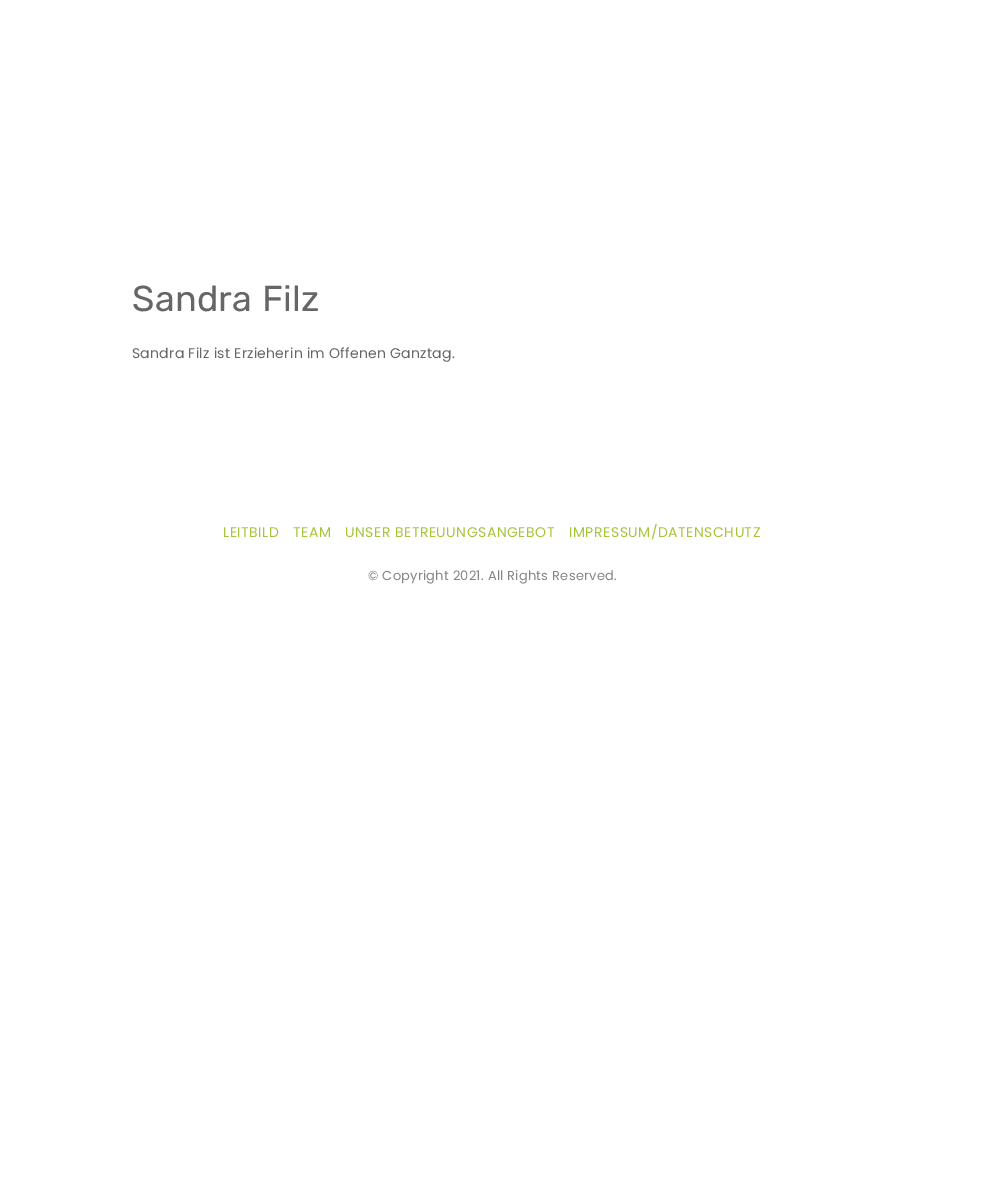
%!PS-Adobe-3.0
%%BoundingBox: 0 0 984 1195
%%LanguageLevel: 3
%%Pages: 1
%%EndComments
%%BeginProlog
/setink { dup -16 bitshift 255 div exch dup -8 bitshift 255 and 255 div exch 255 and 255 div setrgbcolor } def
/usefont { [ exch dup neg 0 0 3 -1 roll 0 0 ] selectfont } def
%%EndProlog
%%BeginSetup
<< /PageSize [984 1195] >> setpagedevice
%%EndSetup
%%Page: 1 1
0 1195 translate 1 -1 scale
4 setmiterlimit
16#FFFFFF setink
0 0 984 1195 rectfill
/Rubik-Regular 36 usefont
16#666666 setink
132 311 moveto 0.25 0 (Sandra Filz) ashow
/Poppins-Regular 14 usefont
132 358 moveto 0.25 0 (Sandra Filz ist Erzieherin im Offenen Ganztag.) ashow
16#A6C437 setink
223 537 moveto 0.5 0 (LEITBILD) ashow
293 537 moveto 0.5 0 (TEAM) ashow
345 537 moveto 0.5 0 (UNSER BETREUUNGSANGEBOT) ashow
569 537 moveto 0.5 0 (IMPRESSUM/DATENSCHUTZ) ashow
/Poppins-Regular 13 usefont
16#858585 setink
368 580 moveto 0.25 0 (© Copyright 2021. All Rights Reserved.) ashow
showpage
%%EOF
